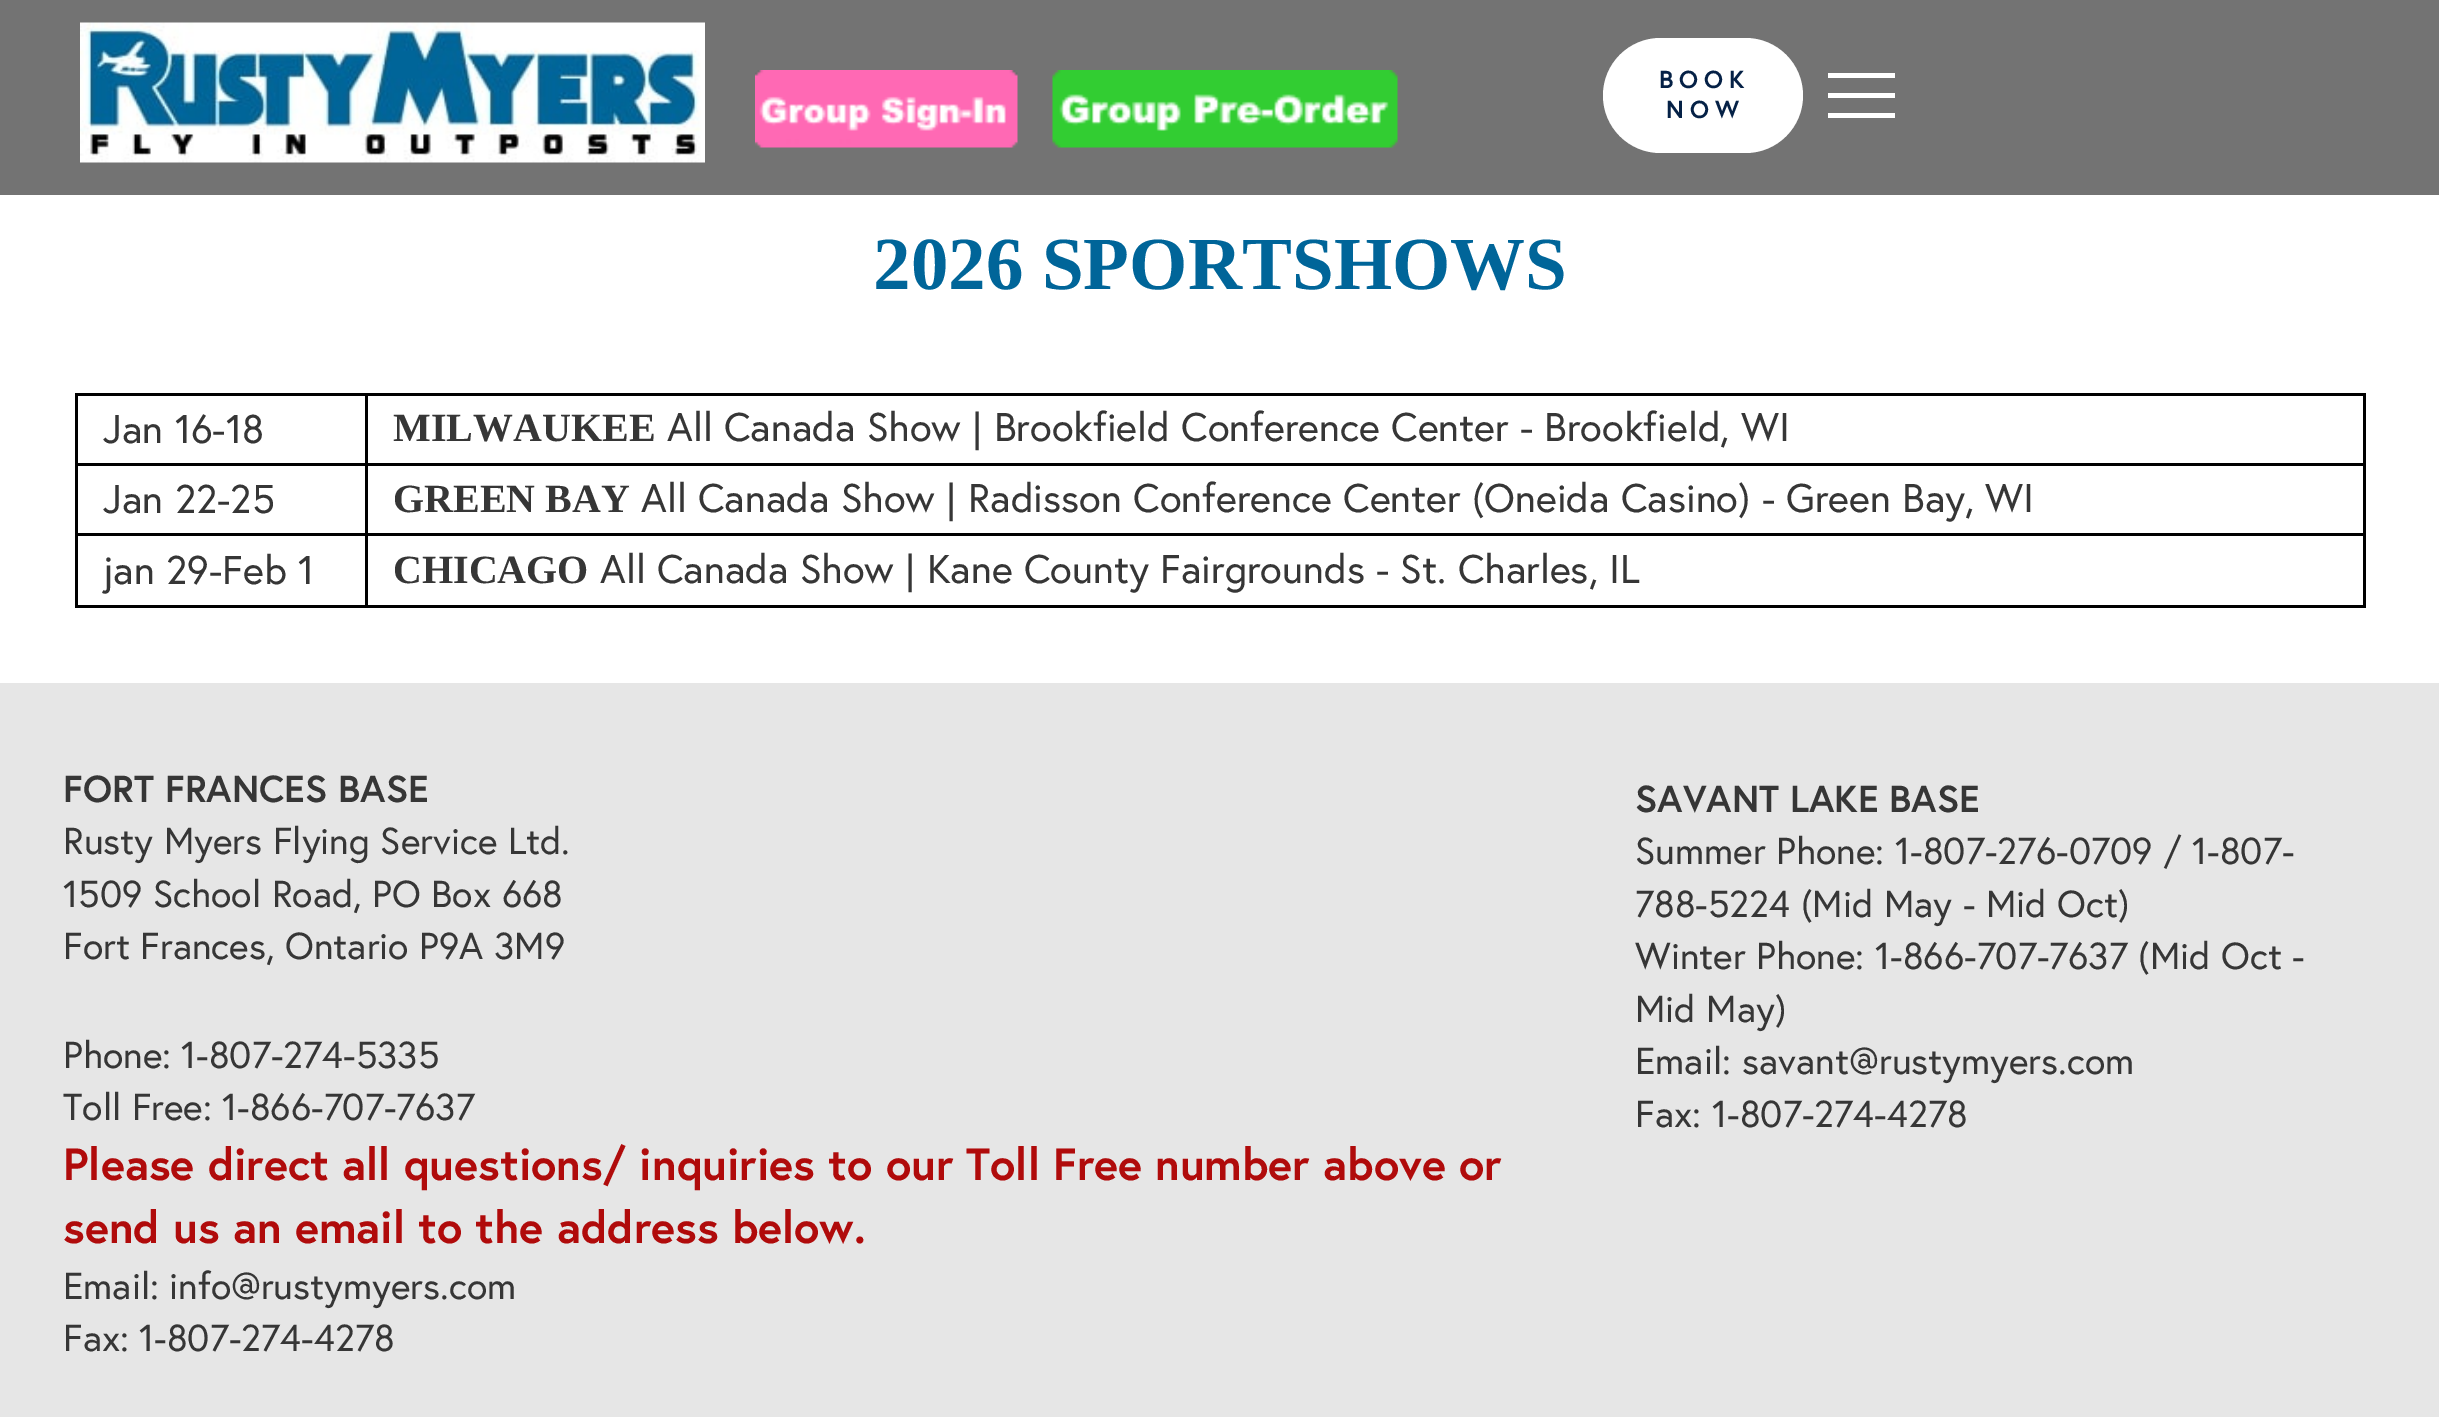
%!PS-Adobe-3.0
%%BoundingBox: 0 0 2439 1417
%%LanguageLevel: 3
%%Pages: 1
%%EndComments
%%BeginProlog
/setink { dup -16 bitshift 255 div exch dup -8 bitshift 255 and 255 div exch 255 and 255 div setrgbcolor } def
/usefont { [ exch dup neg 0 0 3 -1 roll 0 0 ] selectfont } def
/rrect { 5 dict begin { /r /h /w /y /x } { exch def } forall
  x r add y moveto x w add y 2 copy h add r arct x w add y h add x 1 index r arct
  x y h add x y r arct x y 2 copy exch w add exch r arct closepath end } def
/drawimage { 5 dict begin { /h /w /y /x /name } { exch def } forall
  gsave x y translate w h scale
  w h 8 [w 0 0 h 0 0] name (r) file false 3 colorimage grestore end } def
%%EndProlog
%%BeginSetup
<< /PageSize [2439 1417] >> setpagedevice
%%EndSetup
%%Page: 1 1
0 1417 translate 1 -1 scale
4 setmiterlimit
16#FFFFFF setink
0 0 2439 1417 rectfill
16#737373 setink
0 0 2439 195 rectfill
(img1.raw) 80 22 625 141 drawimage
(img2.raw) 755 70 263 78 drawimage
(img3.raw) 1052 70 346 78 drawimage
16#FFFFFF setink
1603 38 200 115 57.5 rrect fill
/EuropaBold-Bold 24.5 usefont
16#052146 setink
1659 88 moveto 6 0 (BOOK) ashow
1666 118 moveto 6 0 (NOW) ashow
[
    [1828 73 67 5 16#FFFFFF]
    [1828 93 67 5 16#FFFFFF]
    [1828 113 67 5 16#FFFFFF]
] { aload pop setink rectfill } forall
/LiberationSerif-Bold 75 usefont
16#006599 setink
873 289 moveto (2026 SPORTSHOWS) show
[
    [75 393 2290 3 16#000000]
    [2363 393 3 215 16#000000]
    [75 605 2290 3 16#000000]
    [75 393 3 215 16#000000]
] { aload pop setink rectfill } forall
/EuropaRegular-Regular 40 usefont
16#363636 setink
103 443 moveto (Jan 16-18) show
[
    [365 463 2000 3 16#000000]
    [365 533 2000 3 16#000000]
    [365 533 3 75 16#000000]
    [75 533 293 3 16#000000]
    [365 463 3 72 16#000000]
    [75 463 293 3 16#000000]
    [365 393 3 72 16#000000]
] { aload pop setink rectfill } forall
/LiberationSerif-Bold 40 usefont
16#363636 setink
393 441 moveto (MILWAUKEE) show
/EuropaRegular-Regular 40 usefont
667 441 moveto (All Canada Show | Brookfield Conference Center - Brookfield, WI) show
103 513 moveto (Jan 22-25) show
/LiberationSerif-Bold 40 usefont
393 512 moveto (GREEN BAY) show
/EuropaRegular-Regular 40 usefont
641 512 moveto (All Canada Show | Radisson Conference Center \(Oneida Casino\) - Green Bay, WI) show
103 584 moveto (jan 29-Feb 1) show
/LiberationSerif-Bold 40 usefont
393 583 moveto (CHICAGO) show
/EuropaRegular-Regular 40 usefont
600 583 moveto (All Canada Show | Kane County Fairgrounds - St. Charles, IL) show
16#E6E6E6 setink
0 683 2439 734 rectfill
/EuropaBold-Bold 37.5 usefont
16#363636 setink
63 802 moveto (FORT FRANCES BASE) show
/EuropaRegular-Regular 37.5 usefont
[
    [(Rusty Myers Flying Service Ltd.) 63 854]
    [(1509 School Road, PO Box 668) 63 907]
    [(Fort Frances, Ontario P9A 3M9) 63 959]
    [(Phone:) 63 1068]
    [(1-807-274-5335) 181 1068]
    [(Toll Free:) 63 1120]
    [(1-866-707-7637) 222 1120]
] { aload pop moveto show } forall
/EuropaBold-Bold 45 usefont
16#B00B0B setink
63 1180 moveto (Please direct all questions/ inquiries to our Toll Free number above or) show
63 1243 moveto (send us an email to the address below.) show
/EuropaRegular-Regular 37.5 usefont
16#363636 setink
[
    [(Email:) 63 1299]
    [(info@rustymyers.com) 169 1299]
    [(Fax:) 63 1351]
    [(1-807-274-4278) 139 1351]
] { aload pop moveto show } forall
/EuropaBold-Bold 37.5 usefont
1635 812 moveto (SAVANT LAKE BASE) show
/EuropaRegular-Regular 37.5 usefont
[
    [(Summer Phone:) 1635 864]
    [(1-807-276-0709 / 1-807-) 1895 864]
    [(788-5224 \(Mid May - Mid Oct\)) 1635 917]
    [(Winter Phone:) 1635 969]
    [(1-866-707-7637 \(Mid Oct -) 1875 969]
    [(Mid May\)) 1635 1022]
    [(Email:) 1635 1074]
    [(savant@rustymyers.com) 1742 1074]
    [(Fax:) 1635 1127]
    [(1-807-274-4278) 1712 1127]
] { aload pop moveto show } forall
showpage
%%EOF
